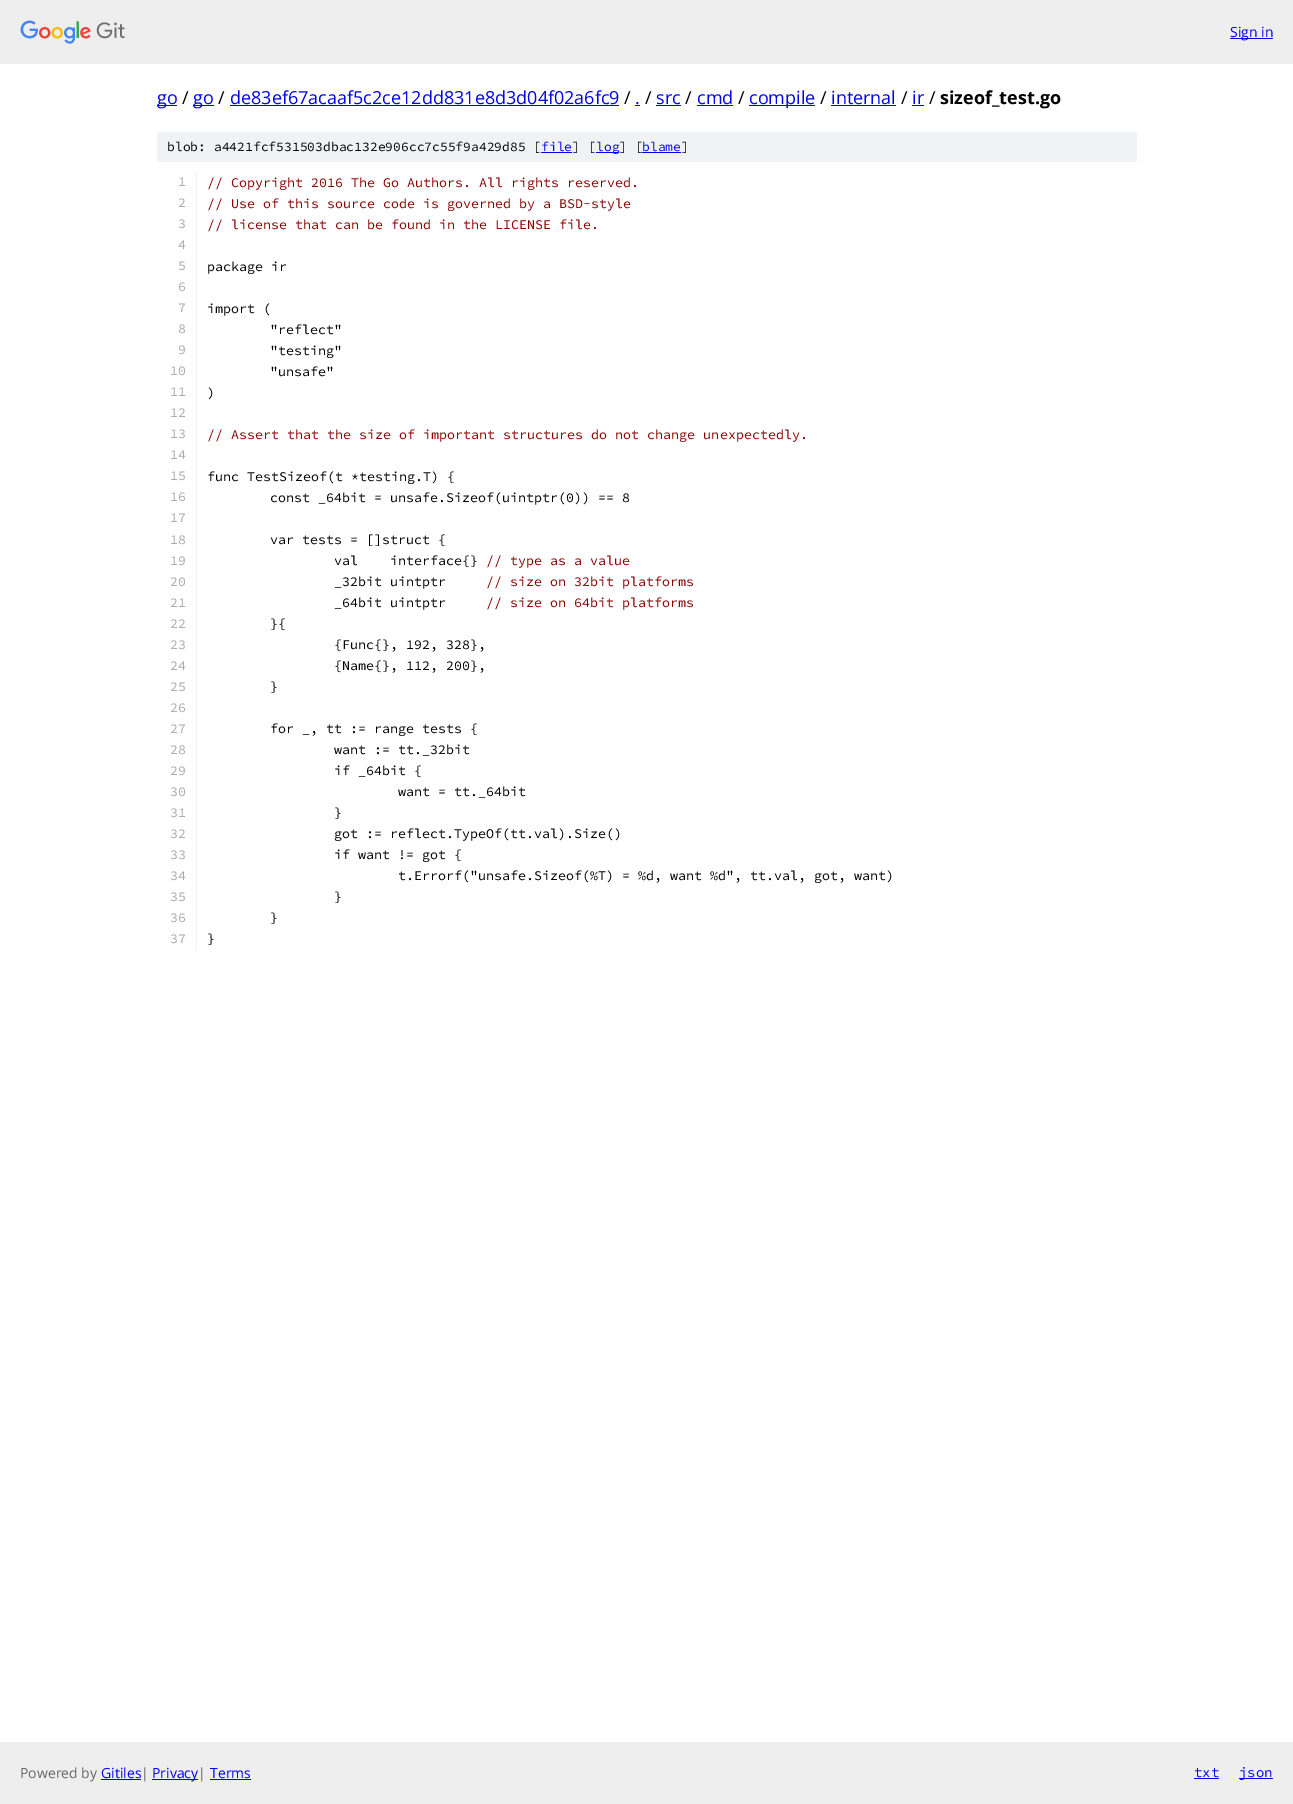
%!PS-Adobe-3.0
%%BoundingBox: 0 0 1293 1804
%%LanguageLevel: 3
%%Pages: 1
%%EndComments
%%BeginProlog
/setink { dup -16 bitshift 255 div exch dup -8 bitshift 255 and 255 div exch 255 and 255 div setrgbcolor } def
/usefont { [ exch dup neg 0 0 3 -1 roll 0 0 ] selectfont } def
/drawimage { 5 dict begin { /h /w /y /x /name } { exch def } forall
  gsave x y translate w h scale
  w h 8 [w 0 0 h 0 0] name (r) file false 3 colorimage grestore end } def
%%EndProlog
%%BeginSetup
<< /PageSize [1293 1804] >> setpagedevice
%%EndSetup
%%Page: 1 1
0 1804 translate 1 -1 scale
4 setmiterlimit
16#FFFFFF setink
0 0 1293 1804 rectfill
16#EEEEEE setink
0 0 1293 64 rectfill
(img1.raw) 20 20 105 24 drawimage
16#0000EE setink
1230 38 43 1 rectfill
/OpenSans-Regular 14 usefont
1230 37 moveto (Sign in) show
157 105 20 1 rectfill
/OpenSans-Regular 18 usefont
157 104 moveto (go) show
16#000000 setink
182 104 moveto (/) show
16#0000EE setink
193 105 21 1 rectfill
193 104 moveto (go) show
16#000000 setink
218 104 moveto (/) show
16#0000EE setink
230 104 moveto (de83ef67acaaf5c2ce12dd831e8d3d04f02a6fc9) show
230 105 389 1 rectfill
16#000000 setink
624 104 moveto (/) show
16#0000EE setink
635 104 moveto (.) show
635 105 5 1 rectfill
16#000000 setink
645 104 moveto (/) show
16#0000EE setink
656 104 moveto (src) show
656 105 25 1 rectfill
16#000000 setink
685 104 moveto (/) show
16#0000EE setink
697 104 moveto (cmd) show
697 105 36 1 rectfill
16#000000 setink
738 104 moveto (/) show
16#0000EE setink
749 105 66 1 rectfill
749 104 moveto (compile) show
16#000000 setink
820 104 moveto (/) show
16#0000EE setink
831 104 moveto (internal) show
831 105 65 1 rectfill
16#000000 setink
901 104 moveto (/) show
16#0000EE setink
912 104 moveto (ir) show
912 105 12 1 rectfill
16#000000 setink
929 104 moveto (/) show
/OpenSans-Bold 18 usefont
940 104 moveto (sizeof_test.go) show
16#F1F2F3 setink
157 132 980 30 rectfill
/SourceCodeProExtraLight-ExtraLight 13 usefont
16#000000 setink
167 151 moveto (blob: a4421fcf531503dbac132e906cc7c55f9a429d85 [) show
16#0000EE setink
541 151 moveto (file) show
541 152 31 1 rectfill
16#000000 setink
572 151 moveto (] [) show
16#0000EE setink
596 152 23 1 rectfill
596 151 moveto (log) show
16#000000 setink
619 151 moveto (] [) show
16#0000EE setink
642 151 moveto (blame) show
642 152 39 1 rectfill
16#000000 setink
681 151 moveto (]) show
16#F1F2F3 setink
196 172 1 357 rectfill
/SourceCodeProExtraLight-ExtraLight 13.35 usefont
16#AAAAAA setink
178 186 moveto (1) show
16#880000 setink
207 187 moveto (// Copyright 2016 The Go Authors. All rights reserved.) show
16#AAAAAA setink
178 207 moveto (2) show
16#880000 setink
207 208 moveto (// Use of this source code is governed by a BSD-style) show
16#AAAAAA setink
178 228 moveto (3) show
16#880000 setink
207 229 moveto (// license that can be found in the LICENSE file.) show
16#AAAAAA setink
178 249 moveto (4) show
178 270 moveto (5) show
16#000000 setink
207 271 moveto (package ir) show
16#AAAAAA setink
178 291 moveto (6) show
178 312 moveto (7) show
16#000000 setink
207 313 moveto (import \() show
16#AAAAAA setink
178 333 moveto (8) show
16#000000 setink
270 334 moveto ("reflect") show
16#AAAAAA setink
178 354 moveto (9) show
16#000000 setink
270 355 moveto ("testing") show
16#AAAAAA setink
170 375 moveto (10) show
16#000000 setink
270 376 moveto ("unsafe") show
16#AAAAAA setink
170 396 moveto (11) show
16#000000 setink
207 397 moveto (\)) show
16#AAAAAA setink
170 417 moveto (12) show
170 438 moveto (13) show
16#880000 setink
207 439 moveto (// Assert that the size of important structures do not change unexpectedly.) show
16#AAAAAA setink
170 459 moveto (14) show
170 480 moveto (15) show
16#000000 setink
207 481 moveto (func TestSizeof\(t *testing.T\) {) show
16#AAAAAA setink
170 501 moveto (16) show
16#000000 setink
270 502 moveto (const _64bit = unsafe.Sizeof\(uintptr\(0\)\) == 8) show
16#AAAAAA setink
170 522 moveto (17) show
16#F1F2F3 setink
196 530 1 20 rectfill
16#AAAAAA setink
170 544 moveto (18) show
16#000000 setink
270 544 moveto (var tests = []struct {) show
16#F1F2F3 setink
196 551 1 20 rectfill
16#AAAAAA setink
170 565 moveto (19) show
16#000000 setink
334 565 moveto (val    interface{}) show
16#880000 setink
486 565 moveto (// type as a value) show
16#F1F2F3 setink
196 572 1 20 rectfill
16#AAAAAA setink
170 586 moveto (20) show
16#000000 setink
334 586 moveto (_32bit uintptr) show
16#880000 setink
486 586 moveto (// size on 32bit platforms) show
16#F1F2F3 setink
196 593 1 20 rectfill
16#AAAAAA setink
170 607 moveto (21) show
16#000000 setink
334 607 moveto (_64bit uintptr) show
16#880000 setink
486 607 moveto (// size on 64bit platforms) show
16#F1F2F3 setink
196 614 1 20 rectfill
16#AAAAAA setink
170 628 moveto (22) show
16#000000 setink
270 628 moveto (}{) show
16#F1F2F3 setink
196 635 1 20 rectfill
16#AAAAAA setink
170 649 moveto (23) show
16#000000 setink
334 649 moveto ({Func{}, 192, 328},) show
16#F1F2F3 setink
196 656 1 20 rectfill
16#AAAAAA setink
170 670 moveto (24) show
16#000000 setink
334 670 moveto ({Name{}, 112, 200},) show
16#F1F2F3 setink
196 677 1 20 rectfill
16#AAAAAA setink
170 691 moveto (25) show
16#000000 setink
270 691 moveto (}) show
16#F1F2F3 setink
196 698 1 20 rectfill
16#AAAAAA setink
170 712 moveto (26) show
16#F1F2F3 setink
196 719 1 20 rectfill
16#AAAAAA setink
170 733 moveto (27) show
16#000000 setink
270 733 moveto (for _, tt := range tests {) show
16#F1F2F3 setink
196 740 1 20 rectfill
16#AAAAAA setink
170 754 moveto (28) show
16#000000 setink
334 754 moveto (want := tt._32bit) show
16#F1F2F3 setink
196 761 1 20 rectfill
16#AAAAAA setink
170 775 moveto (29) show
16#000000 setink
334 775 moveto (if _64bit {) show
16#F1F2F3 setink
196 782 1 20 rectfill
16#AAAAAA setink
170 796 moveto (30) show
16#000000 setink
398 796 moveto (want = tt._64bit) show
16#F1F2F3 setink
196 803 1 20 rectfill
16#AAAAAA setink
170 817 moveto (31) show
16#000000 setink
334 817 moveto (}) show
16#F1F2F3 setink
196 824 1 20 rectfill
16#AAAAAA setink
170 838 moveto (32) show
16#000000 setink
334 838 moveto (got := reflect.TypeOf\(tt.val\).Size\(\)) show
16#F1F2F3 setink
196 845 1 20 rectfill
16#AAAAAA setink
170 859 moveto (33) show
16#000000 setink
334 859 moveto (if want != got {) show
16#F1F2F3 setink
196 866 1 20 rectfill
16#AAAAAA setink
170 880 moveto (34) show
16#000000 setink
398 880 moveto (t.Errorf\("unsafe.Sizeof\(%T\) = %d, want %d", tt.val, got, want\)) show
16#F1F2F3 setink
196 887 1 20 rectfill
16#AAAAAA setink
170 901 moveto (35) show
16#000000 setink
334 901 moveto (}) show
16#F1F2F3 setink
196 908 1 20 rectfill
16#AAAAAA setink
170 922 moveto (36) show
16#000000 setink
270 922 moveto (}) show
16#F1F2F3 setink
196 929 1 20 rectfill
16#AAAAAA setink
170 943 moveto (37) show
16#000000 setink
207 943 moveto (}) show
16#EEEEEE setink
0 1742 1293 62 rectfill
/OpenSans-Regular 14 usefont
16#666666 setink
20 1778 moveto (Powered by) show
16#0000EE setink
101 1778 moveto (Gitiles) show
101 1779 40 1 rectfill
16#666666 setink
141 1778 moveto (|) show
16#0000EE setink
152 1779 46 1 rectfill
152 1778 moveto (Privacy) show
16#666666 setink
198 1778 moveto (|) show
16#0000EE setink
210 1778 moveto (Terms) show
210 1779 41 1 rectfill
/SourceCodeProExtraLight-ExtraLight 14 usefont
1194 1777 moveto (txt) show
1194 1778 25 1 rectfill
1239 1778 34 1 rectfill
1239 1777 moveto (json) show
showpage
%%EOF
